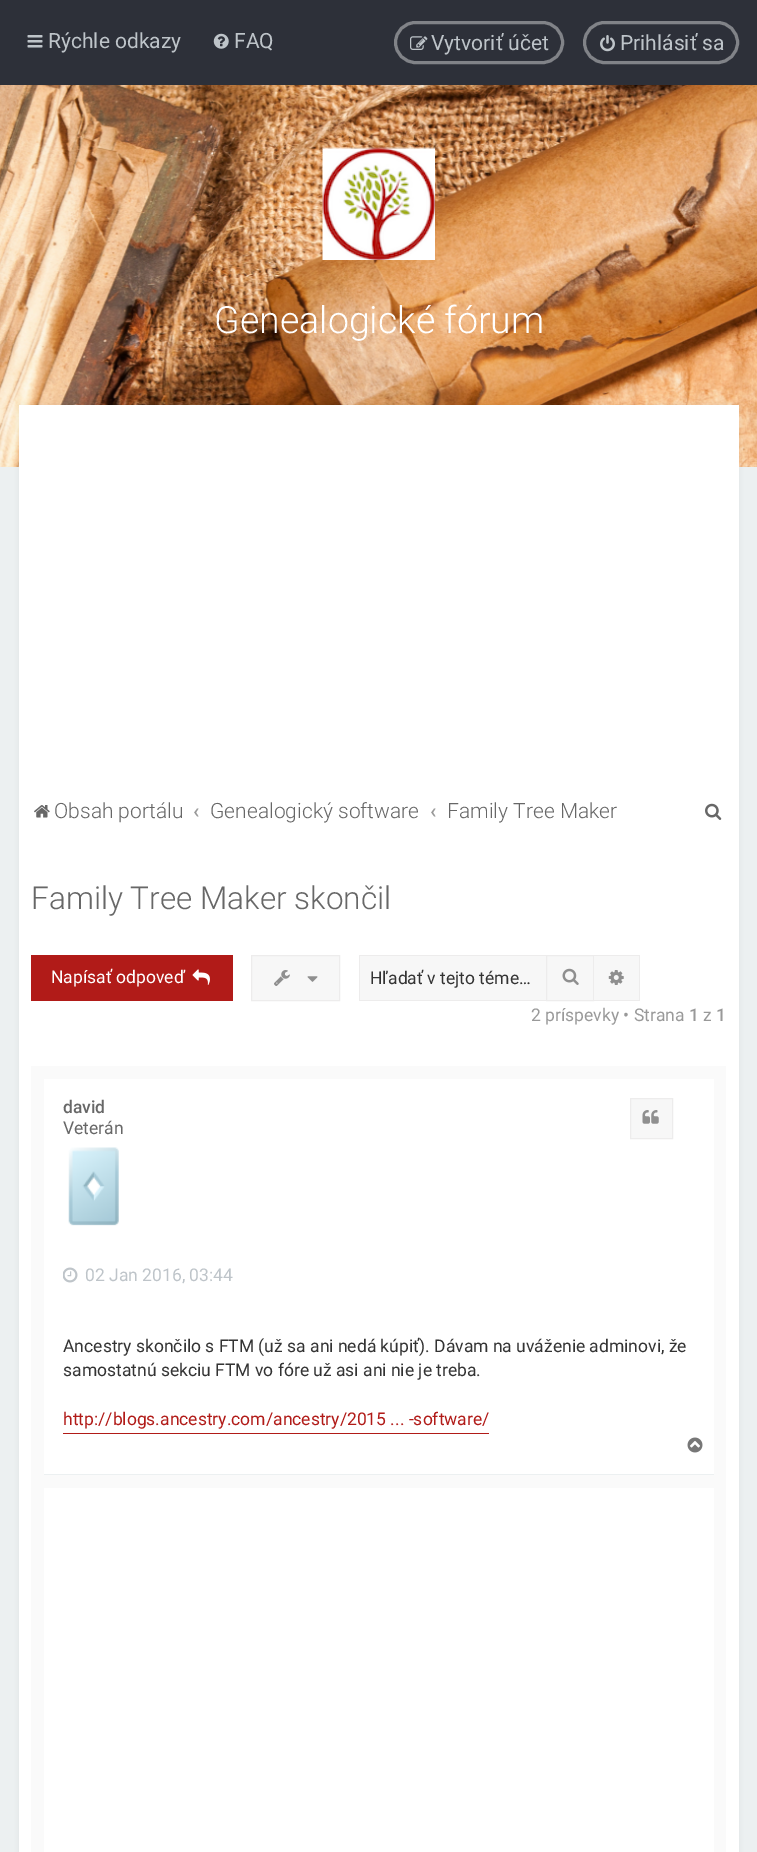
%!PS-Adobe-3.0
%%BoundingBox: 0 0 757 1852
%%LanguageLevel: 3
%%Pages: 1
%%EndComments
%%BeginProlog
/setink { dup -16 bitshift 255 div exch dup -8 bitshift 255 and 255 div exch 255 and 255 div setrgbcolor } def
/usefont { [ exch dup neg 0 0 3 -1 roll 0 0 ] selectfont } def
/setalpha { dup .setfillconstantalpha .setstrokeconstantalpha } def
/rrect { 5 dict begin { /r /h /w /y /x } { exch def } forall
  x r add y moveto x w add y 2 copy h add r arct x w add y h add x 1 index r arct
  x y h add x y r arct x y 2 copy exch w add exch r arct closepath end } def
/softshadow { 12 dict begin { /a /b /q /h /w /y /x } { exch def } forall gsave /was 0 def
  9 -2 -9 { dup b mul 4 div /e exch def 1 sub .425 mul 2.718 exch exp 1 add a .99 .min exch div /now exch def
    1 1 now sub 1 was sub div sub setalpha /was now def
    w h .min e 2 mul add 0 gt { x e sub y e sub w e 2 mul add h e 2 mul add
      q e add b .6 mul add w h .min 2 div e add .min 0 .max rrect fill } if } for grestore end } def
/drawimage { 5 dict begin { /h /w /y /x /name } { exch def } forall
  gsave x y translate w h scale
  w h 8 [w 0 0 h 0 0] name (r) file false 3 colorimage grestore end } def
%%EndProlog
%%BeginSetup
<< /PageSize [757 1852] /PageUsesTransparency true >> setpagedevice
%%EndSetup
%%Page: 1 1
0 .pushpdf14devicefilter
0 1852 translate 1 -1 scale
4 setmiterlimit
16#ECF0F1 setink
0 0 757 1852 rectfill
16#2D3039 setink
0 0 757 85 rectfill
(img1.raw) 27 35 16 13 drawimage
/Roboto-Regular 21 usefont
16#BEC4C9 setink
48 48 moveto (Rýchle odkazy) show
(img2.raw) 213 33 16 16 drawimage
234 48 moveto (FAQ) show
16#818388 setink
3 setlinewidth
395.5 22.5 167 40 20 rrect stroke
(img3.raw) 410 36 18 14 drawimage
16#BEC4C9 setink
431 50 moveto (Vytvoriť účet) show
16#818388 setink
584.5 22.5 153 40 20 rrect stroke
(img4.raw) 600 35 15 17 drawimage
16#BEC4C9 setink
620 50 moveto (Prihlásiť sa) show
(img17.raw) 0 85 757 382 drawimage
(img5.raw) 322 147 113 113 drawimage
/Roboto-Light 37.5 usefont
16#FFFFFF setink
214 333 moveto (Genealogické fórum) show
16#000000 setink
19 405 720 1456 0 3 0.05 softshadow
16#FFFFFF setink
19 405 720 1447 rectfill
(img6.raw) 34 805 16 13 drawimage
/Roboto-Light 21 usefont
16#676767 setink
54 818 moveto (Obsah portálu) show
/Roboto-Medium 21 usefont
16#999999 setink
193 818 moveto (‹) show
/Roboto-Light 21 usefont
16#676767 setink
210 818 moveto (Genealogický software) show
/Roboto-Medium 21 usefont
16#999999 setink
430 818 moveto (‹) show
/Roboto-Light 21 usefont
16#676767 setink
447 818 moveto (Family Tree Maker) show
(img7.raw) 705 803 17 17 drawimage
/Roboto-Light 31.5 usefont
31 909 moveto (Family Tree Maker skončil) show
16#B11B18 setink
31 955 202 46 rectfill
/Roboto-Regular 17.5 usefont
16#FFFFFF setink
51 983 moveto (Napísať odpoveď) show
(img8.raw) 192 969 18 16 drawimage
16#F7F7F7 setink
251.5 955.5 moveto 339.5 955.5 lineto 339.5 1000.5 lineto 251.5 1000.5 lineto closepath gsave fill grestore
16#EDECEC setink
1 setlinewidth
stroke
(img9.raw) 274 970 16 16 drawimage
(img10.raw) 307 976 11 6 drawimage
[
    [360 956 186 44 16#F7F7F7]
    [359 955 187 1 16#EDECEC]
    [359 1000 187 1 16#EDECEC]
    [359 955 1 46 16#EDECEC]
] { aload pop setink rectfill } forall
16#333333 setink
370 984 moveto (Hľadať v tejto téme…) show
16#F7F7F7 setink
546.5 955.5 moveto 593.5 955.5 lineto 593.5 1000.5 lineto 546.5 1000.5 lineto closepath gsave fill grestore
16#EDECEC setink
stroke
(img11.raw) 562 968 17 17 drawimage
[
    [594 956 45 44 16#F7F7F7]
    [594 955 46 1 16#EDECEC]
    [639 955 1 46 16#EDECEC]
    [594 1000 46 1 16#EDECEC]
] { aload pop setink rectfill } forall
(img12.raw) 608 970 16 15 drawimage
16#999999 setink
531 1021 moveto (2 príspevky • Strana) show
/Roboto-Medium 17.5 usefont
689 1021 moveto (1) show
/Roboto-Regular 17.5 usefont
703 1021 moveto (z) show
/Roboto-Medium 17.5 usefont
716 1021 moveto (1) show
[
    [31 1066 695 786 16#FAFAFA]
    [44 1079 670 395 16#FFFFFF]
    [44 1474 670 1 16#ECF0F1]
] { aload pop setink rectfill } forall
16#676767 setink
63 1113 moveto (david) show
/Roboto-Regular 17.5 usefont
63 1134 moveto (Veterán) show
(img13.raw) 68 1147 51 79 drawimage
16#F7F7F7 setink
630.5 1098.5 moveto 672.5 1098.5 lineto 672.5 1138.5 lineto 630.5 1138.5 lineto closepath gsave fill grestore
16#EDECEC setink
stroke
(img14.raw) 642 1110 17 14 drawimage
(img15.raw) 63 1267 15 16 drawimage
16#BEC4C9 setink
85 1281 moveto (02 Jan 2016, 03:44) show
16#333333 setink
63 1352 moveto (Ancestry skončilo s FTM \(už sa ani nedá kúpiť\). Dávam na uváženie adminovi, že) show
63 1376 moveto (samostatnú sekciu FTM vo fóre už asi ani nie je treba.) show
16#B11B18 setink
63 1433 426 1 rectfill
63 1425 moveto (http://blogs.ancestry.com/ancestry/2015 ... -software/) show
(img16.raw) 687 1437 16 16 drawimage
16#FFFFFF setink
44 1488 670 364 rectfill
.poppdf14devicefilter showpage
%%EOF
